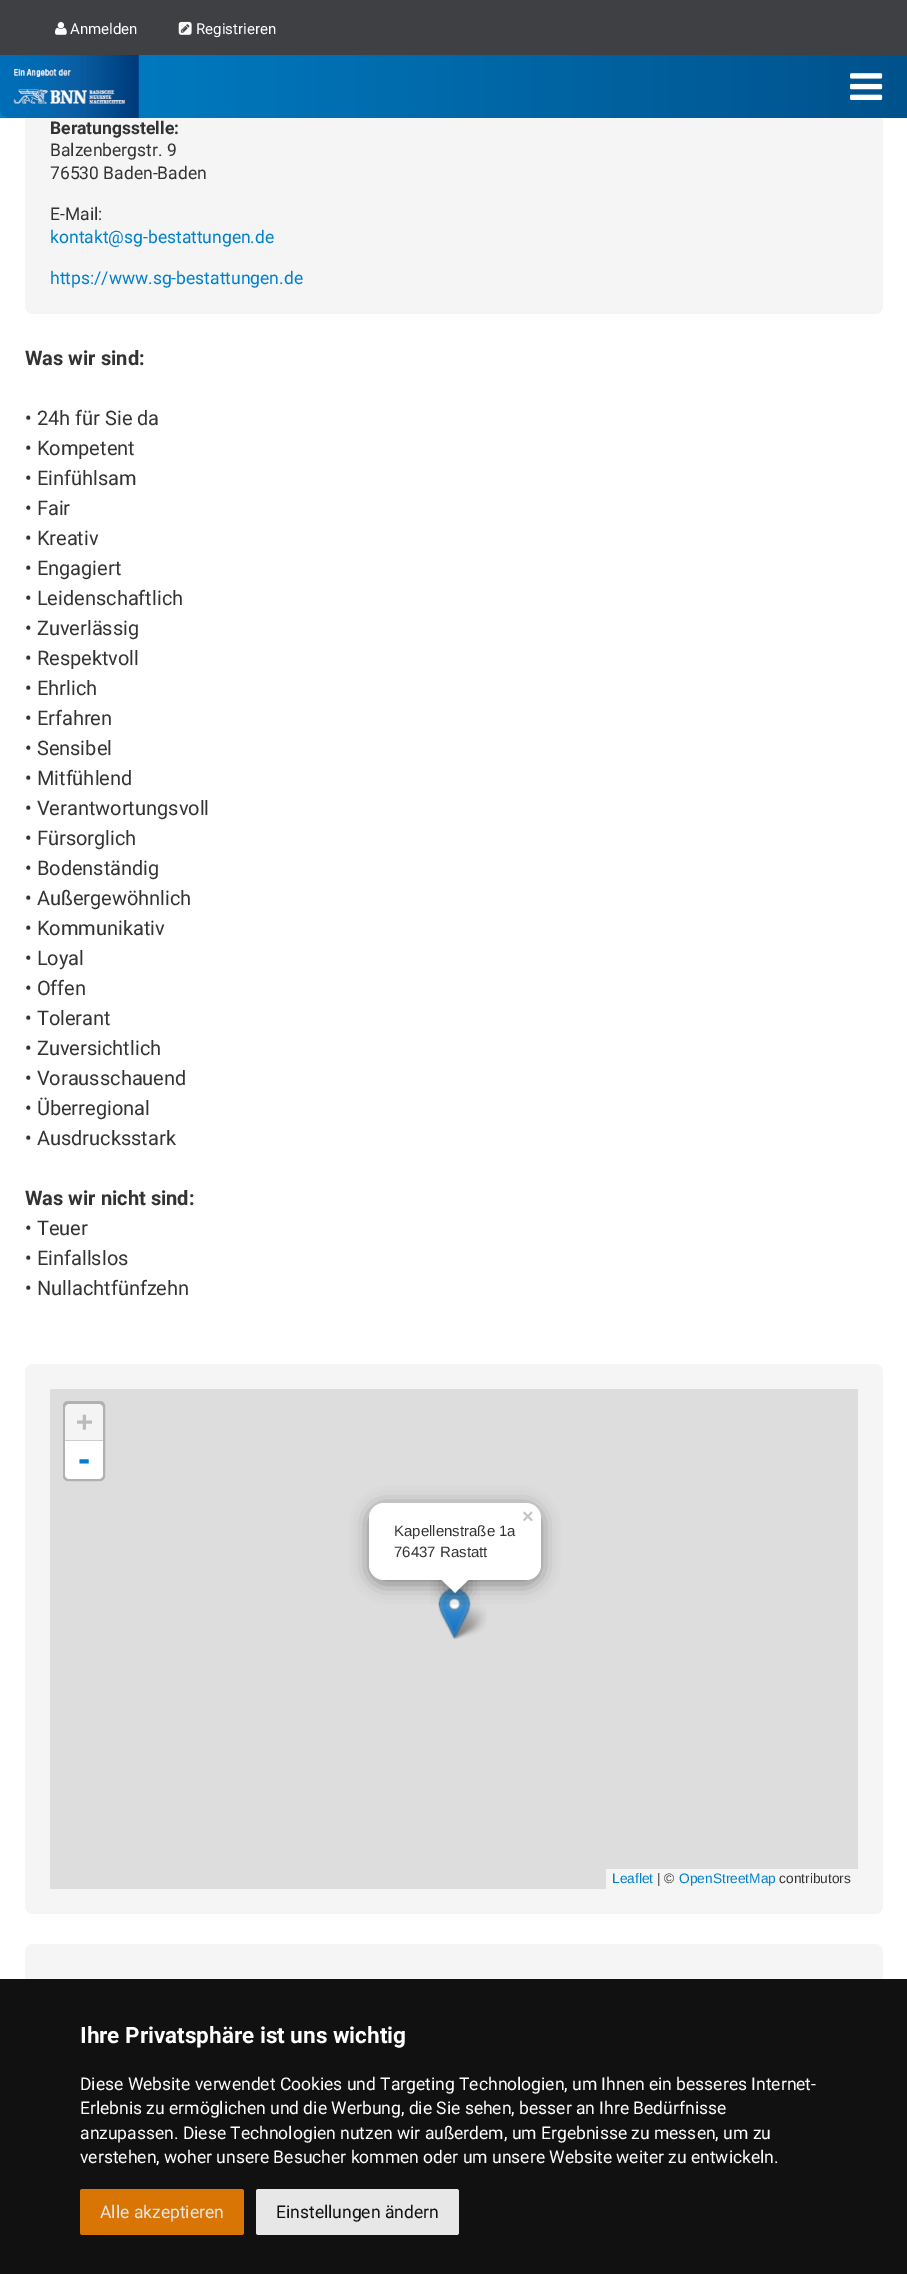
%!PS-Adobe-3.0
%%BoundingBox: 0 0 907 2274
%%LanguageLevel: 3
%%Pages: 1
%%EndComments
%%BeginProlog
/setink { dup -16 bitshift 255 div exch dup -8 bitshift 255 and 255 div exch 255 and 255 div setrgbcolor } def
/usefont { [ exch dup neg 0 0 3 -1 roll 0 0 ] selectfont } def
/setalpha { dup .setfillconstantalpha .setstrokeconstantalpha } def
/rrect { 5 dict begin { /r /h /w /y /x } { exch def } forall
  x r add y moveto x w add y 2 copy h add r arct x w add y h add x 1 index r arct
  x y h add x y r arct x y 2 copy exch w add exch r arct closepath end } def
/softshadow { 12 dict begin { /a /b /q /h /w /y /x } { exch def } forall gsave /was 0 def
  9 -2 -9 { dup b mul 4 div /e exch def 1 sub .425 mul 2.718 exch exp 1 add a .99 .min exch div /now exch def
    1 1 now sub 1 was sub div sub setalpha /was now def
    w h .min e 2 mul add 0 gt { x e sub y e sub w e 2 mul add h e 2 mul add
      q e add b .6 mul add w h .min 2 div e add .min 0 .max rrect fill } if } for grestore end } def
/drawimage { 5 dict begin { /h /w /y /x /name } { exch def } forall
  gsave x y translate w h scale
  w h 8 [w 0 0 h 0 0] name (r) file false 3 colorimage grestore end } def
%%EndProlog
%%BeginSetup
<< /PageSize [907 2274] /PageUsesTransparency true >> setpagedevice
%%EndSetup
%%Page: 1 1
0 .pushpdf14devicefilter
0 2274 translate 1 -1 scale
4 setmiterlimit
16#FFFFFF setink
0 0 907 2274 rectfill
16#F5F5F5 setink
25 -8 858 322 8 rrect fill
gsave 0 55 moveto 907 55 lineto 907 118 lineto 0 118 lineto closepath clip newpath
<< /ShadingType 2 /ColorSpace /DeviceRGB /Coords [0 59 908 59] /Extend [true true] /Function << /FunctionType 2 /Domain [0 1] /C0 [0 0.502 0.784] /C1 [0 0.322 0.549] /N 1 >> >> shfill grestore
16#3F4044 setink
0 0 907 55 rectfill
(img1.raw) 55 22 12 13 drawimage
/Roboto-Regular 15 usefont
16#FFFFFF setink
70 34 moveto (Anmelden) show
(img2.raw) 178 21 14 14 drawimage
196 34 moveto (Registrieren) show
(img3.raw) 0 55 139 63 drawimage
(img4.raw) 850 73 33 27 drawimage
/Roboto-Bold 17.5 usefont
16#333333 setink
50 134 moveto (Beratungsstelle:) show
/Roboto-Regular 17.5 usefont
[
    [(Balzenbergstr. 9) 50 156]
    [(76530 Baden-Baden) 50 179]
    [(E-Mail:) 50 220]
] { aload pop moveto show } forall
16#0080C8 setink
50 243 moveto (kontakt@sg-bestattungen.de) show
50 284 moveto (https://www.sg-bestattungen.de) show
/Roboto-Bold 20 usefont
16#333333 setink
25 365 moveto (Was wir sind:) show
/Roboto-Regular 20 usefont
[
    [(• 24h für Sie da) 25 425]
    [(• Kompetent) 25 455]
    [(• Einfühlsam) 25 485]
    [(• Fair) 25 515]
    [(• Kreativ) 25 545]
    [(• Engagiert) 25 575]
    [(• Leidenschaftlich) 25 605]
    [(• Zuverlässig) 25 635]
    [(• Respektvoll) 25 665]
    [(• Ehrlich) 25 695]
    [(• Erfahren) 25 725]
    [(• Sensibel) 25 755]
    [(• Mitfühlend) 25 785]
    [(• Verantwortungsvoll) 25 815]
    [(• Fürsorglich) 25 845]
    [(• Bodenständig) 25 875]
    [(• Außergewöhnlich) 25 905]
    [(• Kommunikativ) 25 935]
    [(• Loyal) 25 965]
    [(• Offen) 25 995]
    [(• Tolerant) 25 1025]
    [(• Zuversichtlich) 25 1055]
    [(• Vorausschauend) 25 1085]
    [(• Überregional) 25 1115]
    [(• Ausdrucksstark) 25 1145]
] { aload pop moveto show } forall
/Roboto-Bold 20 usefont
25 1205 moveto (Was wir nicht sind:) show
/Roboto-Regular 20 usefont
[
    [(• Teuer) 25 1235]
    [(• Einfallslos) 25 1265]
    [(• Nullachtfünfzehn) 25 1295]
] { aload pop moveto show } forall
16#F5F5F5 setink
25 1364 858 550 8 rrect fill
16#DDDDDD setink
50 1389 808 500 rectfill
16#B1B1B1 setink
3 setlinewidth
64.5 1402.5 39 77 3.5 rrect stroke
16#F4F4F4 setink
70 1404 moveto 98 1404 lineto 101 1404 103 1406 103 1409 curveto 103 1441 lineto 65 1441 lineto 65 1409 lineto 65 1406 67 1404 70 1404 curveto closepath fill
16#CCCCCC setink
65 1440 38 1 rectfill
/DejaVuSansMono-Bold 28 usefont
16#BBBBBB setink
76 1431 moveto (+) show
16#FFFFFF setink
65 1441 moveto 103 1441 lineto 103 1474 lineto 103 1477 101 1479 98 1479 curveto 70 1479 lineto 67 1479 65 1477 65 1474 curveto closepath fill
/DejaVuSansMono-Bold 30 usefont
16#0080C8 setink
75 1470 moveto (-) show
16#F5F5F5 setink
606 1869 252 20 rectfill
/LiberationSans-Regular 13.75 usefont
16#0080C8 setink
612 1883 moveto (Leaflet) show
16#333333 setink
657 1883 moveto (| ©) show
16#0080C8 setink
679 1883 moveto (OpenStreetMap) show
16#333333 setink
779 1883 moveto (contributors) show
(img6.raw) 450 1603 37 36 drawimage
(img5.raw) 438 1588 33 52 drawimage
16#000000 setink
369 1506 172 78 15 9 0.4 softshadow
16#FFFFFF setink
369 1503 172 77 15 rrect fill
/LiberationSans-Bold 20 usefont
16#C3C3C3 setink
522 1523 moveto (×) show
/LiberationSans-Regular 15 usefont
16#333333 setink
394 1536 moveto (Kapellenstraße 1a) show
394 1557 moveto (76437 Rastatt) show
gsave
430 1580 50 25 rectclip
16#000000 setink
445 1571 21 22 0 9 0.4 softshadow
grestore
gsave
430 1580 50 25 rectclip
16#FFFFFF setink
455 1563 moveto 470 1578 lineto 455 1593 lineto 440 1578 lineto closepath fill
grestore
16#F5F5F5 setink
25 1944 858 244 8 rrect fill
16#111111 setink
0 1979 907 295 rectfill
/Roboto-Bold 22.5 usefont
16#FFFFFF setink
80 2043 moveto (Ihre Privatsphäre ist uns wichtig) show
/Roboto-Regular 17.5 usefont
[
    [(Diese Website verwendet Cookies und Targeting Technologien, um Ihnen ein besseres Internet-) 80 2090]
    [(Erlebnis zu ermöglichen und die Werbung, die Sie sehen, besser an Ihre Bedürfnisse) 80 2114]
    [(anzupassen. Diese Technologien nutzen wir außerdem, um Ergebnisse zu messen, um zu) 80 2139]
    [(verstehen, woher unsere Besucher kommen oder um unsere Website weiter zu entwickeln.) 80 2163]
] { aload pop moveto show } forall
16#D87504 setink
80 2189 164 46 2.5 rrect fill
16#E7E7E7 setink
100 2218 moveto (Alle akzeptieren) show
256 2189 203 46 2.5 rrect fill
16#111111 setink
276 2218 moveto (Einstellungen ändern) show
.poppdf14devicefilter showpage
%%EOF
